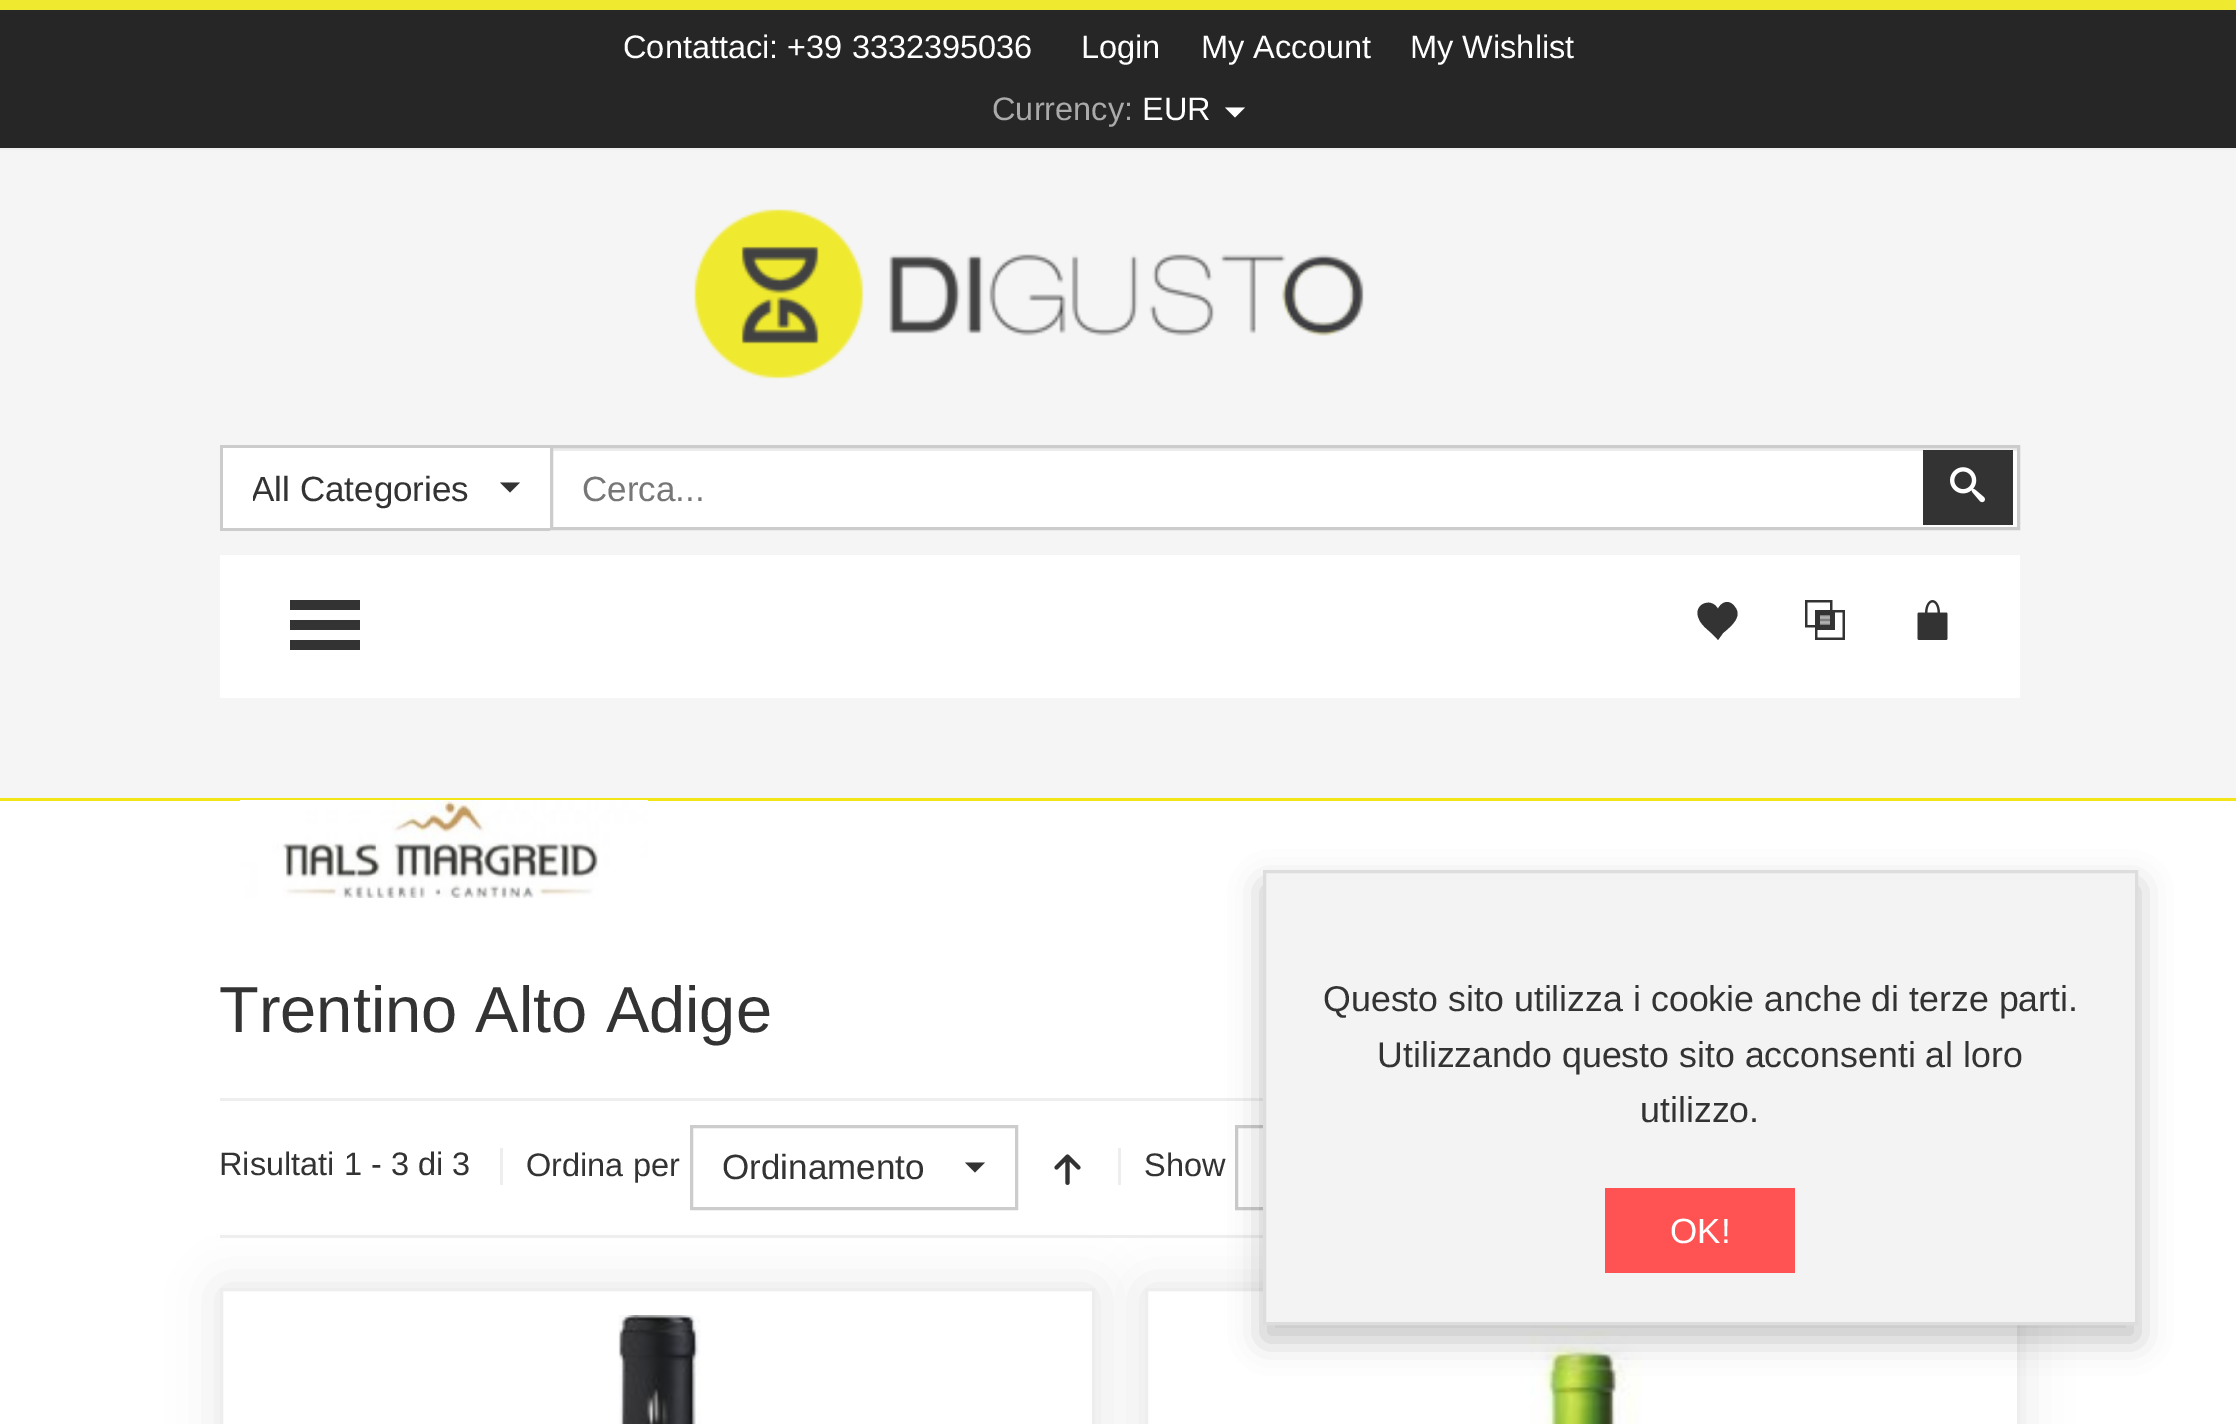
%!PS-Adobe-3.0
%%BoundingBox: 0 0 2236 1424
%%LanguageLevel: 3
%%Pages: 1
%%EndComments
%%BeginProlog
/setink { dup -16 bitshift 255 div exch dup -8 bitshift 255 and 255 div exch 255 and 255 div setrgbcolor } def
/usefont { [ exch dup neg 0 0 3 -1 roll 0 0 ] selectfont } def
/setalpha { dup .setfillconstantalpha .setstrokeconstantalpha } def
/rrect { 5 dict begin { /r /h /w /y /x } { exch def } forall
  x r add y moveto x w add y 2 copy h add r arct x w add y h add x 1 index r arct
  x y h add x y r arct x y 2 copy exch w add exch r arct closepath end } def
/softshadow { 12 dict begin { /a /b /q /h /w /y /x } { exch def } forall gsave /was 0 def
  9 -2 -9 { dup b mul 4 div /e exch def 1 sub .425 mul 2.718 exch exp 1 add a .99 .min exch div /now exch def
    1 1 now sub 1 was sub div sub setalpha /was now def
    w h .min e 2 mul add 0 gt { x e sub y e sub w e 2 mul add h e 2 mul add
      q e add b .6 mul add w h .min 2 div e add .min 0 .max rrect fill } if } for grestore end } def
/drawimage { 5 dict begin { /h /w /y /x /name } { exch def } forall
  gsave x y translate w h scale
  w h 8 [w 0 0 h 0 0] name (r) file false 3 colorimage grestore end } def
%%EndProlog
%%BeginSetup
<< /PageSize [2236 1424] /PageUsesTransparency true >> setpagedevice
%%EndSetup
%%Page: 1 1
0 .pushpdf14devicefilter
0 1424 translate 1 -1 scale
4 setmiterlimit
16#FFFFFF setink
0 0 2236 1424 rectfill
[
    [0 10 2236 138 16#262626]
    [0 0 2236 10 16#EFE92F]
    [0 148 2236 2 16#EEEEEE]
] { aload pop setink rectfill } forall
/LiberationSans-Regular 32.5 usefont
16#FFFFFF setink
[
    [(Contattaci: +39 3332395036) 623 58]
    [(Login) 1081 58]
    [(My Account) 1201 58]
    [(My Wishlist) 1410 58]
] { aload pop moveto show } forall
16#AAAAAA setink
992 120 moveto (Currency:) show
16#FFFFFF setink
1142 120 moveto (EUR) show
1225 107.5 moveto 1245 107.5 lineto 1235 117.5 lineto closepath fill
16#F1E517 setink
0 798 2236 3 rectfill
16#F5F5F5 setink
0 150 2236 648 rectfill
(img1.raw) 694 209 670 170 drawimage
[
    [223 448 327 80 16#FFFFFF]
    [220 445 330 3 16#CCCCCC]
    [220 528 330 3 16#CCCCCC]
    [220 445 3 85 16#CCCCCC]
] { aload pop setink rectfill } forall
gsave
253 463 235 50 rectclip
/LiberationSans-Regular 35 usefont
16#333333 setink
251 501 moveto (All Categories) show
grestore
16#333333 setink
500 482.5 moveto 520 482.5 lineto 510 492.5 lineto closepath fill
16#FFFFFF setink
553 451 1464 76 rectfill
16#ECECEC setink
553 448 1465 3 rectfill
16#CCCCCC setink
3 setlinewidth
551.5 446.5 1467 82 rectstroke
/LiberationSans-Regular 35 usefont
16#777777 setink
582 501 moveto (Cerca...) show
16#333333 setink
1923 450 90 75 rectfill
(img2.raw) 1950 467 35 36 drawimage
16#FFFFFF setink
220 555 1800 143 rectfill
16#333333 setink
290 600 moveto 360 600 lineto 360 610 lineto 290 610 lineto closepath 290 620 moveto 360 620 lineto 360 630 lineto 290 630 lineto closepath 290 640 moveto 360 640 lineto 360 650 lineto 290 650 lineto closepath fill
1727 602 moveto 1723 602 1719 606 1718 609 curveto 1711 596 1692 605 1699 619 curveto 1702 627 1712 632 1718 640 curveto 1723 633 lineto 1730 627 1743 617 1735 607 curveto 1733 604 1730 602 1727 602 curveto closepath fill
(img3.raw) 1805 600 40 40 drawimage
(img4.raw) 1917 600 31 40 drawimage
(img5.raw) 240 800 408 98 drawimage
/LiberationSans-Regular 65 usefont
219 1032 moveto (Trentino Alto Adige) show
16#EEEEEE setink
220 1098 1043 3 rectfill
gsave
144 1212 moveto 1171 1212 lineto 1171 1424 lineto 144 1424 lineto closepath 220 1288 moveto 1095 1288 lineto 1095 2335 lineto 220 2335 lineto closepath eoclip newpath
16#000000 setink
220 1288 875 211 0 25 0.1 softshadow
grestore
221.5 1289.5 872 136 rectstroke
gsave
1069 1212 moveto 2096 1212 lineto 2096 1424 lineto 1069 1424 lineto closepath 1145 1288 moveto 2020 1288 lineto 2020 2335 lineto 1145 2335 lineto closepath eoclip newpath
16#000000 setink
1145 1288 875 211 0 25 0.1 softshadow
grestore
220 1235 1043 3 rectfill
/LiberationSans-Regular 32.5 usefont
16#333333 setink
219 1175 moveto (Risultati 1 - 3 di 3) show
16#EEEEEE setink
500 1148 3 37 rectfill
16#333333 setink
526 1176 moveto (Ordina per) show
16#CCCCCC setink
691.5 1126.5 325 82 rectstroke
/LiberationSans-Regular 35 usefont
16#333333 setink
722 1179 moveto (Ordinamento) show
965 1162.5 moveto 985 1162.5 lineto 975 1172.5 lineto closepath fill
(img6.raw) 1054 1154 27 31 drawimage
16#EEEEEE setink
1118 1148 3 37 rectfill
/LiberationSans-Regular 32.5 usefont
16#333333 setink
1144 1176 moveto (Show) show
16#CCCCCC setink
1236.5 1126.5 162 82 rectstroke
(img7.raw) 618 1315 83 109 drawimage
16#EEEEEE setink
1146.5 1289.5 872 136 rectstroke
(img8.raw) 1530 1325 111 99 drawimage
16#000000 setink
1263 885 875 455 0 16 0.23 softshadow
16#F3F3F3 setink
1264.5 871.5 moveto 2136.5 871.5 lineto 2136.5 1323.5 lineto 1264.5 1323.5 lineto closepath gsave fill grestore
16#DDDDDD setink
stroke
/LiberationSans-Regular 35.75 usefont
16#333333 setink
[
    [(Questo sito utilizza i cookie anche di terze parti.) 1323 1011]
    [(Utilizzando questo sito acconsenti al loro) 1377 1067]
    [(utilizzo.) 1640 1122]
] { aload pop moveto show } forall
16#FF5252 setink
1605 1188 190 85 rectfill
/LiberationSans-Regular 35 usefont
16#FFFFFF setink
1670 1243 moveto (OK!) show
.poppdf14devicefilter showpage
%%EOF
